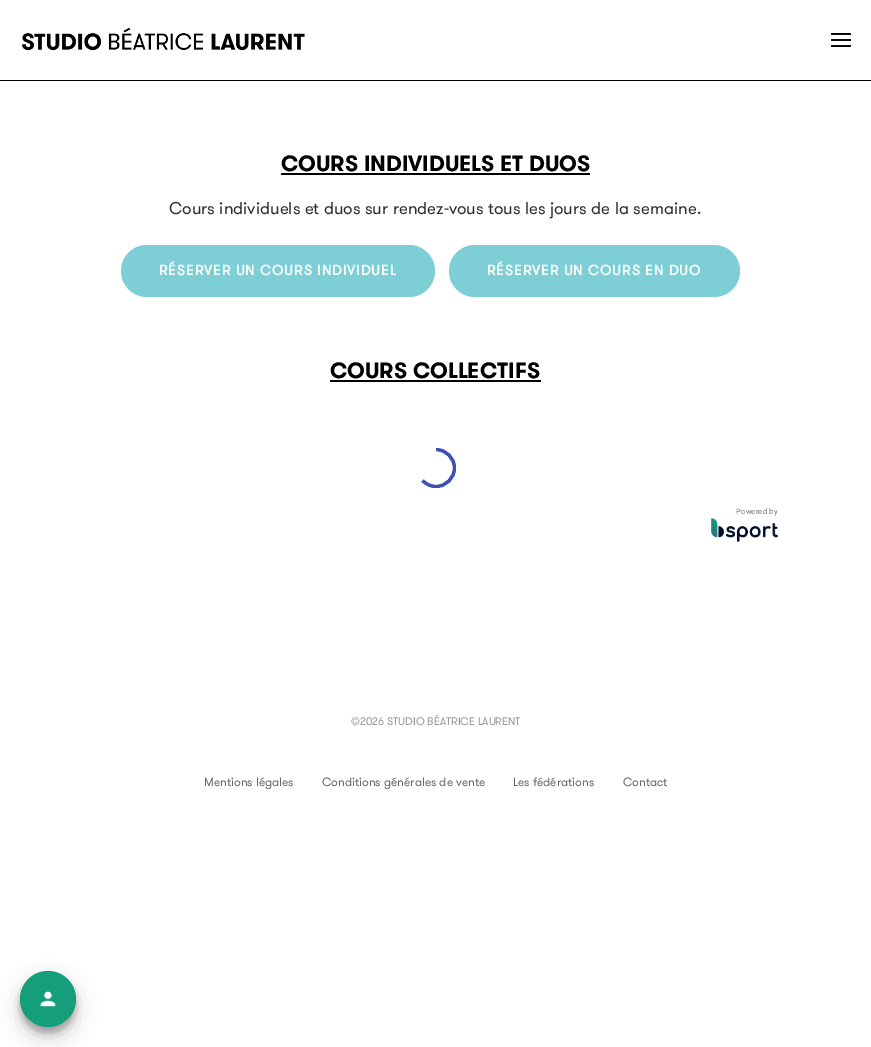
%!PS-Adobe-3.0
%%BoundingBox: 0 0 871 1047
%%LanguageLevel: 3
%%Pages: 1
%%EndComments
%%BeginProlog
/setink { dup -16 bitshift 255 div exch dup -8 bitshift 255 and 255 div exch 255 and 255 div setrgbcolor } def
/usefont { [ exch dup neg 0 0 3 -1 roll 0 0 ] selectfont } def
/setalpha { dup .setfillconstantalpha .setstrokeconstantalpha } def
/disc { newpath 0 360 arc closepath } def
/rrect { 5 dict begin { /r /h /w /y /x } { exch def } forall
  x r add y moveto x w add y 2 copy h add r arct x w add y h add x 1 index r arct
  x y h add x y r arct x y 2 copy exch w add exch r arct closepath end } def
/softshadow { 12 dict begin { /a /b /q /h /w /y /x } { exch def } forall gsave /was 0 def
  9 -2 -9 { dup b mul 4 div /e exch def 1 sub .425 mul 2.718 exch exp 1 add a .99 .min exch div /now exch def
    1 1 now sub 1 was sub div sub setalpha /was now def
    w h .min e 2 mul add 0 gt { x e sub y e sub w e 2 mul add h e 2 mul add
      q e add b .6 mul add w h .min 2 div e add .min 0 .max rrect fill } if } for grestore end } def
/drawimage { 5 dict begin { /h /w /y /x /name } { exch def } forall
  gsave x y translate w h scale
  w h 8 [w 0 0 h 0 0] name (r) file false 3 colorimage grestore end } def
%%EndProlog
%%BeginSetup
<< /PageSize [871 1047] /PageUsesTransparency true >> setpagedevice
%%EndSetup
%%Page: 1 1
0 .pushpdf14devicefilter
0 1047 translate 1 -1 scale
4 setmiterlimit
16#FFFFFF setink
0 0 871 1047 rectfill
16#000000 setink
0 80 871 1 rectfill
(img1.raw) 22 27 283 24 drawimage
16#0A0A0A setink
831 39 20 2 1 rrect fill
831 33 20 2 1 rrect fill
831 45 20 2 1 rrect fill
/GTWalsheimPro-Bold 22 usefont
16#000000 setink
281 171 moveto (COURS INDIVIDUELS ET DUOS) show
281 173 309 2 rectfill
/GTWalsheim-Regular 17 usefont
16#32302E setink
169 214 moveto (Cours individuels et duos sur rendez-vous tous les jours de la semaine.) show
16#7ECED5 setink
121 245 314 52 26 rrect fill
/GTWalsheim-Bold 14 usefont
16#FFFFFF setink
159 275 moveto 1 0 (RÉSERVER UN COURS INDIVIDUEL) ashow
16#7ECED5 setink
449 245 291 52 26 rrect fill
16#FFFFFF setink
487 275 moveto 1 0 (RÉSERVER UN COURS EN DUO) ashow
/GTWalsheimPro-Bold 22 usefont
16#000000 setink
330 378 moveto (COURS COLLECTIFS) show
330 380 211 2 rectfill
gsave
416 448 40 40 rectclip
16#3F51B5 setink
3.3 setlinewidth
436 449.5 moveto 446 449.5 454.5 458 454.5 468 curveto 454.5 478 446 486.5 436 486.5 curveto 430.5 486.5 426 484 422.5 480.5 curveto stroke
grestore
/Roboto-Regular 7.5 usefont
16#757575 setink
736 514 moveto 0.25 0 (Powered by) ashow
(img2.raw) 711 518 67 24 drawimage
/GTWalsheim-Regular 11 usefont
16#999999 setink
351 725 moveto (©2026 STUDIO BÉATRICE LAURENT) show
/GTWalsheim-Regular 12 usefont
16#666666 setink
[
    [(Mentions légales) 204 786]
    [(Conditions générales de vente) 322 786]
    [(Les fédérations) 513 786]
    [(Contact) 623 786]
] { aload pop moveto show } forall
16#000000 setink
20 977 56 56 28 3 0.23 softshadow
20 981 56 56 28 10 0.19 softshadow
16#149E7A setink
48 999 28 disc fill
(img3.raw) 40 991 16 16 drawimage
.poppdf14devicefilter showpage
%%EOF
